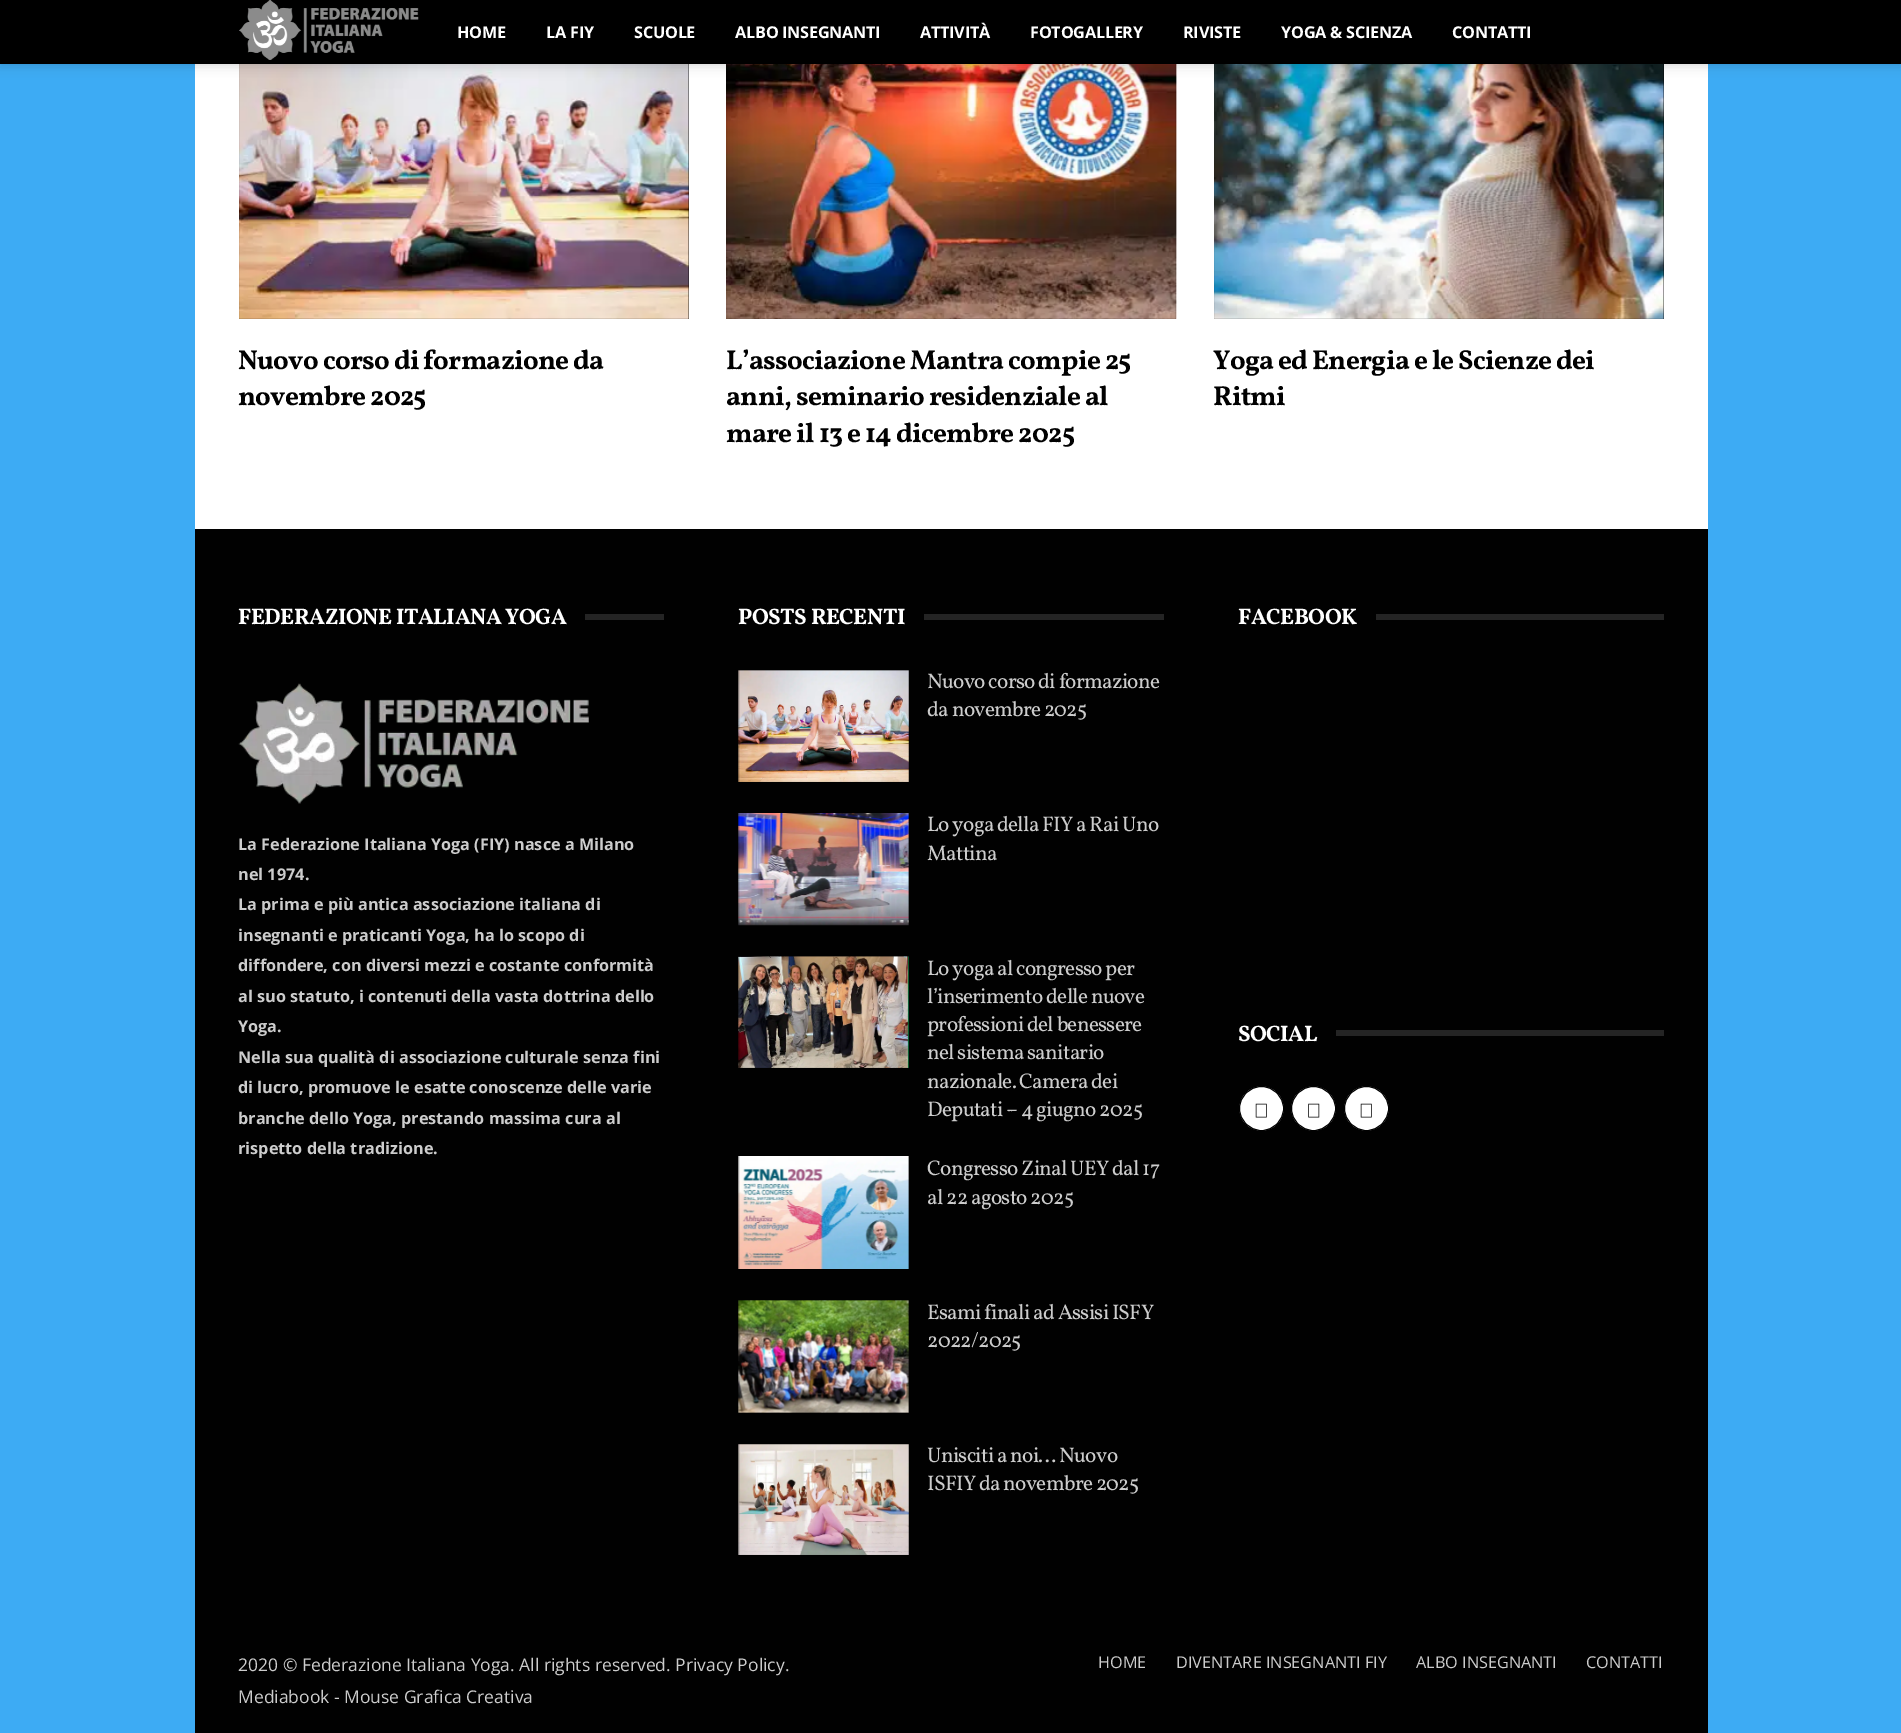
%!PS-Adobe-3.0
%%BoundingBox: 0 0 1901 1733
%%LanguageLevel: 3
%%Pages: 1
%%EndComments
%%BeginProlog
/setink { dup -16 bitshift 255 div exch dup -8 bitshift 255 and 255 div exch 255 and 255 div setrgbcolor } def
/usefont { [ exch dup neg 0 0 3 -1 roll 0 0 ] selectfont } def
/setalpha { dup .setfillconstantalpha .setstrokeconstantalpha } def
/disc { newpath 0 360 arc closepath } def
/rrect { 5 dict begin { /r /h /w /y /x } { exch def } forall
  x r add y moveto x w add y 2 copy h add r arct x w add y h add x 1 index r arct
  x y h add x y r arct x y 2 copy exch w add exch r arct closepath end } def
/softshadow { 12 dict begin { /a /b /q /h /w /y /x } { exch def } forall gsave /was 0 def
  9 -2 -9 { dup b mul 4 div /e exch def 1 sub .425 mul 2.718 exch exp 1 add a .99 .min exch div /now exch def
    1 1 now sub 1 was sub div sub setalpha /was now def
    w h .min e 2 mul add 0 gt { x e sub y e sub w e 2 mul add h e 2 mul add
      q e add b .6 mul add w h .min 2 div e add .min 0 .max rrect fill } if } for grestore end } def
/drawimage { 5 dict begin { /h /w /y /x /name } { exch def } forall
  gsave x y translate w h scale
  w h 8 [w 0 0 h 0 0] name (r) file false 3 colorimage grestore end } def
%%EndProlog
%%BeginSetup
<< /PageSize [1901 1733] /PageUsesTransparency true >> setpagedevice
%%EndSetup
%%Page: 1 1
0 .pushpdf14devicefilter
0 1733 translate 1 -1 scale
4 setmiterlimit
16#3DABF4 setink
0 0 1901 1733 rectfill
16#FFFFFF setink
195 64 1513 465 rectfill
16#010101 setink
239 64 450 255 rectfill
(img2.raw) 239 64 450 255 drawimage
(img3.raw) 726 64 451 255 drawimage
1214 64 450 255 rectfill
(img4.raw) 1214 64 450 255 drawimage
16#000000 setink
0 -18 1901 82 0 6 0.2 softshadow
0 0 1901 64 rectfill
(img1.raw) 239 0 180 60 drawimage
/OpenSans-Bold 16.25 usefont
16#FFFFFF setink
457 38 moveto -0.25 0 (HOME) ashow
546 38 moveto -0.25 0 (LA FIY) ashow
634 38 moveto -0.25 0 (SCUOLE) ashow
735 38 moveto -0.25 0 (ALBO INSEGNANTI) ashow
920 38 moveto -0.25 0 (ATTIVITÀ) ashow
1030 38 moveto -0.25 0 (FOTOGALLERY) ashow
1183 38 moveto -0.25 0 (RIVISTE) ashow
1281 38 moveto -0.25 0 (YOGA & SCIENZA) ashow
1452 38 moveto -0.25 0 (CONTATTI) ashow
/Vollkorn-Bold 27.5 usefont
16#010101 setink
238 369 moveto -0.75 0 (Nuovo corso di formazione da) ashow
238 405 moveto -0.75 0 (novembre 2025) ashow
726 369 moveto -0.75 0 (L’associazione Mantra compie 25) ashow
726 405 moveto -0.75 0 (anni, seminario residenziale al) ashow
726 442 moveto -0.75 0 (mare il 13 e 14 dicembre 2025) ashow
1213 369 moveto -0.75 0 (Yoga ed Energia e le Scienze dei) ashow
1213 405 moveto -0.75 0 (Ritmi) ashow
195 529 1513 1204 rectfill
/Vollkorn-Bold 22.5 usefont
16#FFFFFF setink
238 624 moveto -0.5 0 (FEDERAZIONE ITALIANA YOGA) ashow
16#242424 setink
585 614 79 6 rectfill
(img5.raw) 238 683 351 121 drawimage
/OpenSans-Bold 16.25 usefont
16#CCCCCC setink
[
    [(La Federazione Italiana Yoga \(FIY\) nasce a Milano) 238 850]
    [(nel 1974.) 238 880]
    [(La prima e più antica associazione italiana di) 238 910]
    [(insegnanti e praticanti Yoga, ha lo scopo di) 238 941]
    [(diffondere, con diversi mezzi e costante conformità) 238 971]
    [(al suo statuto, i contenuti della vasta dottrina dello) 238 1002]
    [(Yoga.) 238 1032]
    [(Nella sua qualità di associazione culturale senza fini) 238 1063]
    [(di lucro, promuove le esatte conoscenze delle varie) 238 1093]
    [(branche dello Yoga, prestando massima cura al) 238 1124]
    [(rispetto della tradizione.) 238 1154]
] { aload pop moveto show } forall
/Vollkorn-Bold 22.5 usefont
16#FFFFFF setink
738 624 moveto -0.5 0 (POSTS RECENTI) ashow
16#242424 setink
924 614 240 6 rectfill
(img6.raw) 738 670 171 112 drawimage
/Vollkorn-Regular 21.25 usefont
16#CCCCCC setink
927 688 moveto -0.75 0 (Nuovo corso di formazione) ashow
927 716 moveto -0.75 0 (da novembre 2025) ashow
(img7.raw) 738 813 171 113 drawimage
927 831 moveto -0.75 0 (Lo yoga della FIY a Rai Uno) ashow
927 860 moveto -0.75 0 (Mattina) ashow
(img8.raw) 738 956 171 112 drawimage
927 975 moveto -0.75 0 (Lo yoga al congresso per) ashow
927 1003 moveto -0.75 0 (l’inserimento delle nuove) ashow
927 1031 moveto -0.75 0 (professioni del benessere) ashow
927 1059 moveto -0.75 0 (nel sistema sanitario) ashow
927 1088 moveto -0.75 0 (nazionale. Camera dei) ashow
927 1116 moveto -0.75 0 (Deputati – 4 giugno 2025) ashow
(img9.raw) 738 1156 171 113 drawimage
927 1175 moveto -0.75 0 (Congresso Zinal UEY dal 17) ashow
927 1204 moveto -0.75 0 (al 22 agosto 2025) ashow
(img10.raw) 738 1300 171 113 drawimage
927 1319 moveto -0.75 0 (Esami finali ad Assisi ISFY) ashow
927 1347 moveto -0.75 0 (2022/2025) ashow
(img11.raw) 738 1444 171 111 drawimage
927 1462 moveto -0.75 0 (Unisciti a noi… Nuovo) ashow
927 1490 moveto -0.75 0 (ISFIY da novembre 2025) ashow
/Vollkorn-Bold 22.5 usefont
16#FFFFFF setink
1238 624 moveto -0.5 0 (FACEBOOK) ashow
16#242424 setink
1376 614 288 6 rectfill
16#FFFFFF setink
1238 1041 moveto -0.5 0 (SOCIAL) ashow
16#242424 setink
1336 1030 328 6 rectfill
16#FFFFFF setink
1261.5 1108.5 22 disc gsave fill grestore
16#010101 setink
stroke
(img12.raw) 1255 1103 12 15 drawimage
16#FFFFFF setink
1313.5 1108.5 22 disc gsave fill grestore
16#010101 setink
stroke
(img13.raw) 1308 1103 12 15 drawimage
16#FFFFFF setink
1366.5 1108.5 22 disc gsave fill grestore
16#010101 setink
stroke
(img12.raw) 1360 1103 12 15 drawimage
/OpenSans-Regular 17.5 usefont
16#CCCCCC setink
238 1671 moveto (2020 © Federazione Italiana Yoga. All rights reserved. Privacy Policy.) show
238 1703 moveto (Mediabook - Mouse Grafica Creativa) show
/OpenSans-Regular 16.25 usefont
[
    [(HOME) 1098 1668]
    [(DIVENTARE INSEGNANTI FIY) 1176 1668]
    [(ALBO INSEGNANTI) 1416 1668]
    [(CONTATTI) 1586 1668]
] { aload pop moveto show } forall
.poppdf14devicefilter showpage
%%EOF
